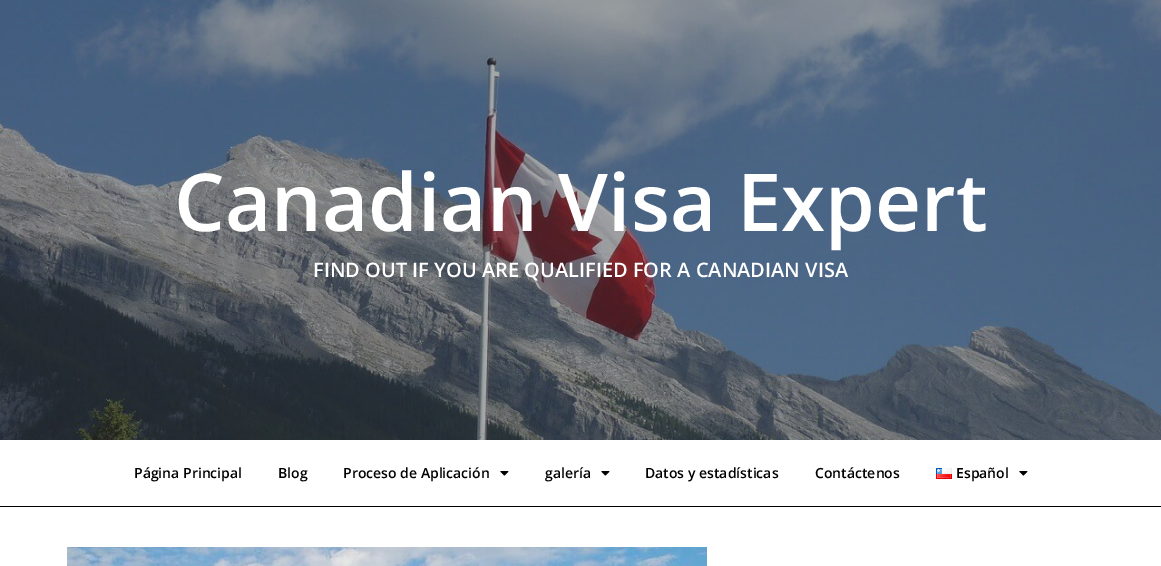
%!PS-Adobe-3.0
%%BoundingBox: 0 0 1161 566
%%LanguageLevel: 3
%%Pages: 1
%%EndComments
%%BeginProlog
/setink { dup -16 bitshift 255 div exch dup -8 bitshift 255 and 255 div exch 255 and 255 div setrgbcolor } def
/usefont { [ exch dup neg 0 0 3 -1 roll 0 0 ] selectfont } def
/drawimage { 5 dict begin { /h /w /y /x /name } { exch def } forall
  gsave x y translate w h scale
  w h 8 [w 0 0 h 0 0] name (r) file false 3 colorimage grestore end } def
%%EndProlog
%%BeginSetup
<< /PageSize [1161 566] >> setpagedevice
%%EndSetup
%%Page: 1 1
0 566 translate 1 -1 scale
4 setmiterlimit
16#FFFFFF setink
0 0 1161 566 rectfill
(img1.raw) 0 0 1161 440 drawimage
/OpenSans-SemiBold 80 usefont
174 231 moveto (Canadian Visa Expert) show
/OpenSans-SemiBold 20 usefont
313 277 moveto (FIND OUT IF YOU ARE QUALIFIED FOR A CANADIAN VISA) show
16#000000 setink
0 506 1161 1 rectfill
/OpenSans-SemiBold 14 usefont
[
    [(Página Principal) 134 478]
    [(Blog) 278 478]
    [(Proceso de Aplicación) 343 478]
] { aload pop moveto show } forall
(img2.raw) 500 471 9 5 drawimage
545 478 moveto (galería) show
(img2.raw) 601 471 9 5 drawimage
645 478 moveto (Datos y estadísticas) show
815 478 moveto (Contáctenos) show
(img3.raw) 936 468 16 11 drawimage
956 478 moveto (Español) show
(img2.raw) 1019 471 9 5 drawimage
(img4.raw) 67 547 640 19 drawimage
showpage
%%EOF
